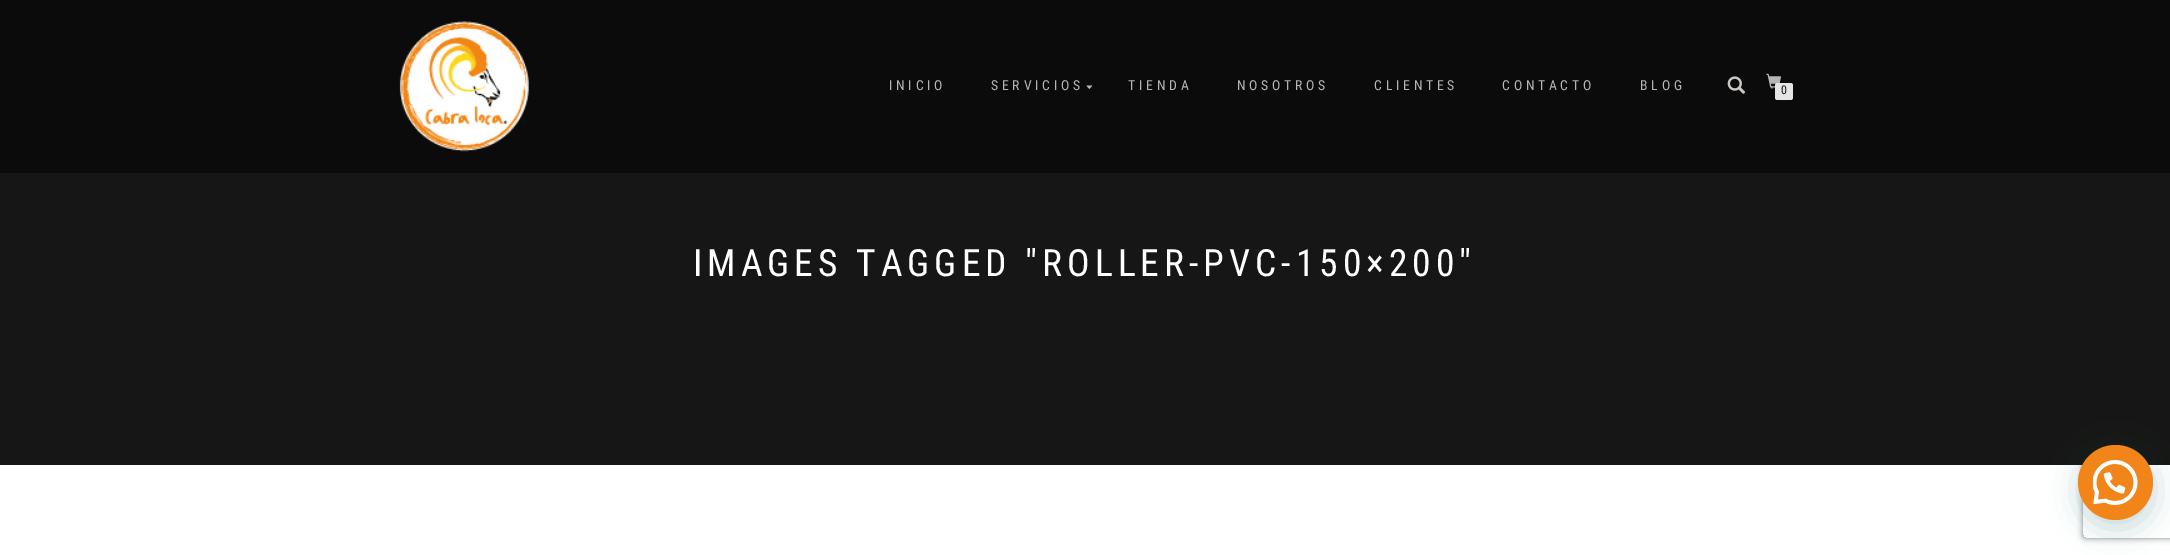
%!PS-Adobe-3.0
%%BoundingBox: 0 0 2170 555
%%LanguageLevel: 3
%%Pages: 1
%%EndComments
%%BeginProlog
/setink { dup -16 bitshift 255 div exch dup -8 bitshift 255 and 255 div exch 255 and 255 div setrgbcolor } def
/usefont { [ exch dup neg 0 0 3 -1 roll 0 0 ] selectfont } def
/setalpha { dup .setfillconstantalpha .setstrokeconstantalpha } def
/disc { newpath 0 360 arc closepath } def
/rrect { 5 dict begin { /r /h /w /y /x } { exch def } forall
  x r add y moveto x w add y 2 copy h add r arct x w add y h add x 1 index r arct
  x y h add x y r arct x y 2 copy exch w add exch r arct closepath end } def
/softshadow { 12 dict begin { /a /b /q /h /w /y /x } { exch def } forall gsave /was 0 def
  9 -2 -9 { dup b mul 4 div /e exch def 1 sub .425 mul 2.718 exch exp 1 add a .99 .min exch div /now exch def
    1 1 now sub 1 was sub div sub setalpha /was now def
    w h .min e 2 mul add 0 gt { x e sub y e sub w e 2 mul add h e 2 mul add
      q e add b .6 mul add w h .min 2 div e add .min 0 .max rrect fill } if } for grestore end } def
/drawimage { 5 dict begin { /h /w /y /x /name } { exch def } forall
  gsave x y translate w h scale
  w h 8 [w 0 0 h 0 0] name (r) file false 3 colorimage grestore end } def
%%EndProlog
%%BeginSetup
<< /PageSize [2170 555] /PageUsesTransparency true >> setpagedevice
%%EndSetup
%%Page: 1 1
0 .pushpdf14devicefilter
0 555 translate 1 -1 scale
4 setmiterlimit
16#FFFFFF setink
0 0 2170 555 rectfill
16#0B0B0B setink
0 0 2170 173 rectfill
(img1.raw) 399 21 130 131 drawimage
/RobotoCondensed-Regular 13.75 usefont
16#B6B6B6 setink
889 90 moveto 3.75 0 (INICIO) ashow
991 90 moveto 3.75 0 (SERVICIOS) ashow
(img2.raw) 1086 85 7 4 drawimage
1128 90 moveto 3.75 0 (TIENDA) ashow
1237 90 moveto 3.75 0 (NOSOTROS) ashow
1374 90 moveto 3.75 0 (CLIENTES) ashow
1502 90 moveto 3.75 0 (CONTACTO) ashow
1640 90 moveto 3.75 0 (BLOG) ashow
(img3.raw) 1727 76 19 18 drawimage
(img4.raw) 1766 73 15 16 drawimage
16#E5E5E5 setink
1775 83 18 17 2.5 rrect fill
/RobotoCondensed-Regular 12 usefont
16#111111 setink
1781 94 moveto (0) show
gsave
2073 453 moveto 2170 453 lineto 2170 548 lineto 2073 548 lineto closepath 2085.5 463 moveto 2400.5 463 lineto 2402 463 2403 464 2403 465.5 curveto 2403 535.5 lineto 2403 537 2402 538 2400.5 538 curveto 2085.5 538 lineto 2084 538 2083 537 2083 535.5 curveto 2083 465.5 lineto 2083 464 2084 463 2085.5 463 curveto closepath eoclip newpath
16#808080 setink
2083 463 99 75 2.5 3 1 softshadow
grestore
16#161616 setink
0 173 2170 292 rectfill
/RobotoCondensed-Regular 37.5 usefont
16#FFFFFF setink
693 276 moveto 5 0 (IMAGES TAGGED "ROLLER-PVC-150×200") ashow
16#075E54 setink
2079 453 75 75 37.5 15 0.24 softshadow
16#F18519 setink
2115.5 482.5 37.5 disc fill
(img5.raw) 2093 460 45 45 drawimage
.poppdf14devicefilter showpage
%%EOF
